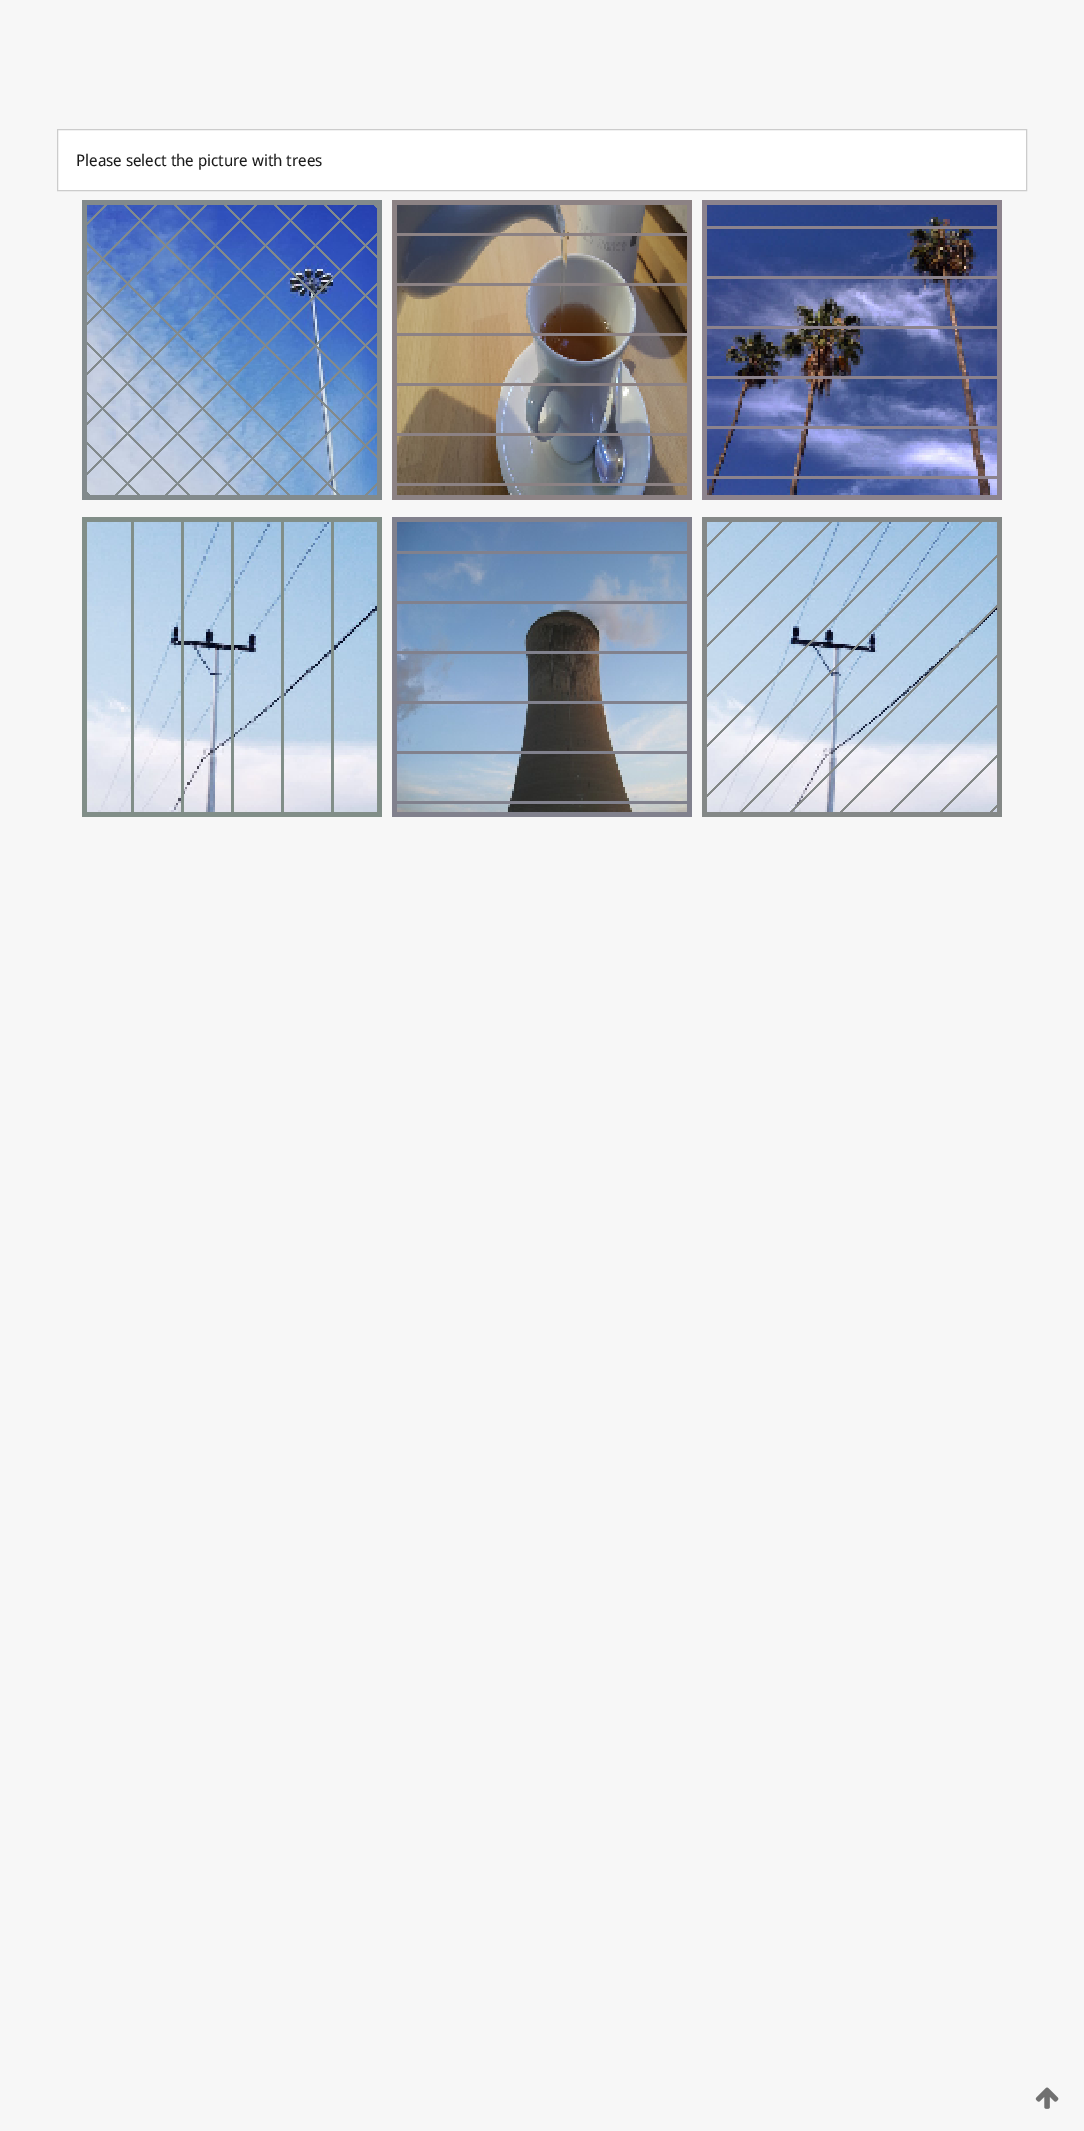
%!PS-Adobe-3.0
%%BoundingBox: 0 0 1084 2131
%%LanguageLevel: 3
%%Pages: 1
%%EndComments
%%BeginProlog
/setink { dup -16 bitshift 255 div exch dup -8 bitshift 255 and 255 div exch 255 and 255 div setrgbcolor } def
/usefont { [ exch dup neg 0 0 3 -1 roll 0 0 ] selectfont } def
/drawimage { 5 dict begin { /h /w /y /x /name } { exch def } forall
  gsave x y translate w h scale
  w h 8 [w 0 0 h 0 0] name (r) file false 3 colorimage grestore end } def
%%EndProlog
%%BeginSetup
<< /PageSize [1084 2131] >> setpagedevice
%%EndSetup
%%Page: 1 1
0 2131 translate 1 -1 scale
4 setmiterlimit
16#F7F7F7 setink
0 0 1084 2131 rectfill
16#FFFFFF setink
57.5 129.5 moveto 1026.5 129.5 lineto 1026.5 190.5 lineto 57.5 190.5 lineto closepath gsave fill grestore
16#CCCCCC setink
stroke
/NotoSansDisplay-Regular 16 usefont
16#1A1A1A setink
76 166 moveto (Please select the picture with trees) show
(img1.raw) 82 200 300 300 drawimage
(img2.raw) 392 200 300 300 drawimage
(img3.raw) 702 200 300 300 drawimage
(img4.raw) 82 517 300 300 drawimage
(img5.raw) 392 517 300 300 drawimage
(img6.raw) 702 517 300 300 drawimage
(img7.raw) 1035 2087 24 22 drawimage
showpage
%%EOF
